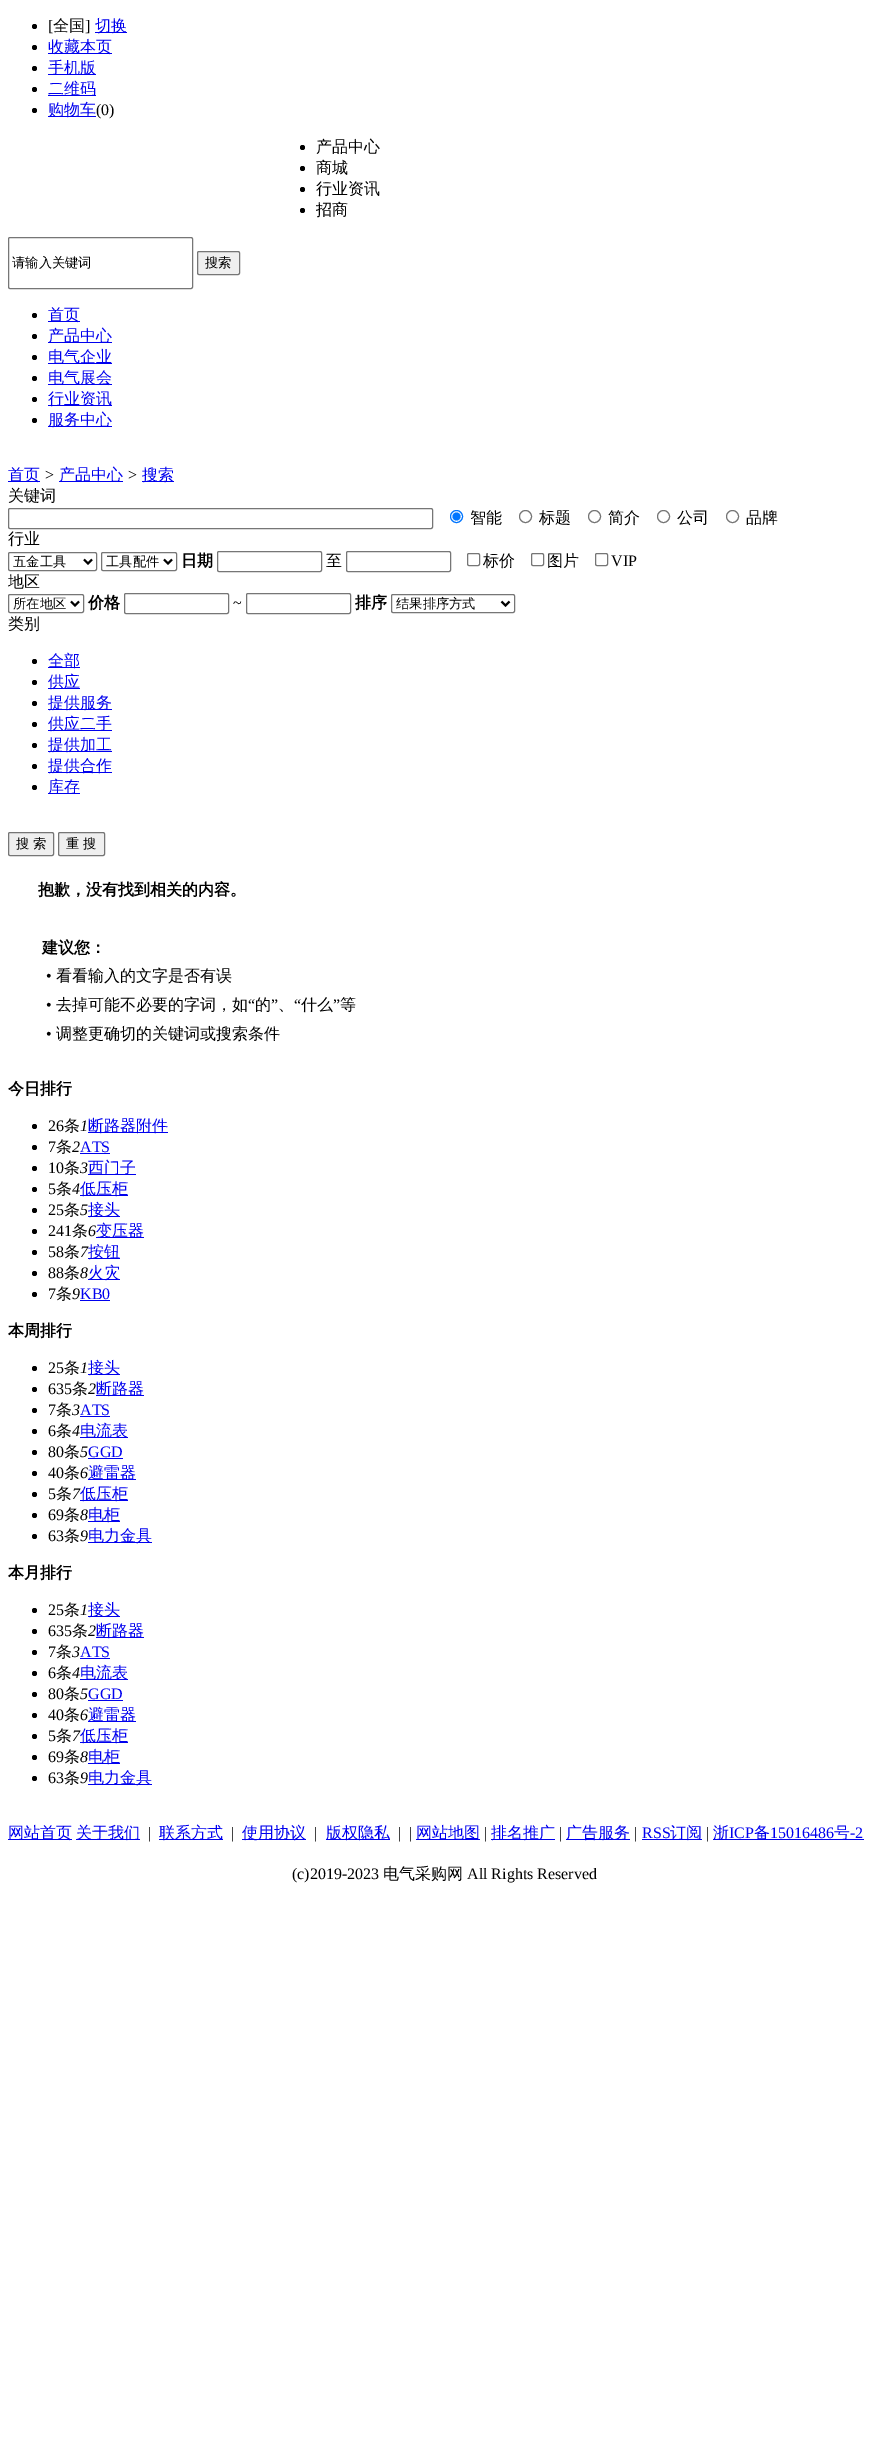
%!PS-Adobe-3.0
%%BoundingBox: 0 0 888 2460
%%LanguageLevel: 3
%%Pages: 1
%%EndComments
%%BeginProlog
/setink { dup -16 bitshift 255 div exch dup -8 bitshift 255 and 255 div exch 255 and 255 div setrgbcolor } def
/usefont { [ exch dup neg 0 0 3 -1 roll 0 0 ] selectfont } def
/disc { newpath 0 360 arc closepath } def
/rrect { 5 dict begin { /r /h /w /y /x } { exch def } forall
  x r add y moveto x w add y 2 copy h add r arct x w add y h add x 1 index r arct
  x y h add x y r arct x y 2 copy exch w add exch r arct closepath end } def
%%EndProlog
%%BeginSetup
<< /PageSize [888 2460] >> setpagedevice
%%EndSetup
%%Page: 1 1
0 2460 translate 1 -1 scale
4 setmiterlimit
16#FFFFFF setink
0 0 888 2460 rectfill
16#000000 setink
34.5 26.5 2.5 disc fill
/LiberationSerif-Regular 16 usefont
48 31 moveto ([) show
/WenQuanYiZenHei-Medium 16 usefont
53 31 moveto (全国) show
/LiberationSerif-Regular 16 usefont
85 31 moveto (]) show
16#0000EE setink
95 32 32 1 rectfill
/WenQuanYiZenHei-Medium 16 usefont
95 31 moveto (切换) show
16#000000 setink
34.5 47.5 2.5 disc fill
16#0000EE setink
48 53 64 1 rectfill
48 52 moveto (收藏本页) show
16#000000 setink
34.5 68.5 2.5 disc fill
16#0000EE setink
48 74 48 1 rectfill
48 73 moveto (手机版) show
16#000000 setink
34.5 89.5 2.5 disc fill
16#0000EE setink
48 95 48 1 rectfill
48 94 moveto (二维码) show
16#000000 setink
34.5 110.5 2.5 disc fill
16#0000EE setink
48 116 48 1 rectfill
48 115 moveto (购物车) show
/LiberationSerif-Regular 16 usefont
16#000000 setink
96 115 moveto (\(0\)) show
302.5 147.5 2.5 disc fill
/WenQuanYiZenHei-Medium 16 usefont
316 152 moveto (产品中心) show
302.5 168.5 2.5 disc fill
316 173 moveto (商城) show
302.5 189.5 2.5 disc fill
316 194 moveto (行业资讯) show
302.5 210.5 2.5 disc fill
316 215 moveto (招商) show
16#767676 setink
8.5 237.5 184 51 1.5 rrect stroke
/WenQuanYiZenHei-Medium 13.25 usefont
16#000000 setink
12 267 moveto (请输入关键词) show
16#EFEFEF setink
197.5 251.5 42 23 1.5 rrect gsave fill grestore
16#767676 setink
stroke
16#000000 setink
205 267 moveto (搜索) show
34.5 315.5 2.5 disc fill
16#0000EE setink
48 321 32 1 rectfill
/WenQuanYiZenHei-Medium 16 usefont
48 320 moveto (首页) show
16#000000 setink
34.5 336.5 2.5 disc fill
16#0000EE setink
48 342 64 1 rectfill
48 341 moveto (产品中心) show
16#000000 setink
34.5 357.5 2.5 disc fill
16#0000EE setink
48 363 64 1 rectfill
48 362 moveto (电气企业) show
16#000000 setink
34.5 378.5 2.5 disc fill
16#0000EE setink
48 384 64 1 rectfill
48 383 moveto (电气展会) show
16#000000 setink
34.5 399.5 2.5 disc fill
16#0000EE setink
48 405 64 1 rectfill
48 404 moveto (行业资讯) show
16#000000 setink
34.5 420.5 2.5 disc fill
16#0000EE setink
48 426 64 1 rectfill
48 425 moveto (服务中心) show
8 481 32 1 rectfill
8 480 moveto (首页) show
/LiberationSerif-Italic 16 usefont
16#000000 setink
44 480 moveto (>) show
16#0000EE setink
59 481 64 1 rectfill
/WenQuanYiZenHei-Medium 16 usefont
59 480 moveto (产品中心) show
/LiberationSerif-Italic 16 usefont
16#000000 setink
127 480 moveto (>) show
16#0000EE setink
142 481 32 1 rectfill
/WenQuanYiZenHei-Medium 16 usefont
142 480 moveto (搜索) show
16#000000 setink
8 501 moveto (关键词) show
16#767676 setink
8.5 508.5 424 20 1.5 rrect stroke
16#0075FF setink
456.5 516.5 6 disc stroke
456.5 516.5 4 disc fill
16#000000 setink
470 523 moveto (智能) show
16#767676 setink
525.5 516.5 6 disc stroke
16#000000 setink
539 523 moveto (标题) show
16#767676 setink
594.5 516.5 6 disc stroke
16#000000 setink
608 523 moveto (简介) show
16#767676 setink
663.5 516.5 6 disc stroke
16#000000 setink
677 523 moveto (公司) show
16#767676 setink
732.5 516.5 6 disc stroke
16#000000 setink
746 523 moveto (品牌) show
8 544 moveto (行业) show
16#767676 setink
8.5 552.5 88 18 1.5 rrect stroke
16#000000 setink
2 setlinewidth
84 559.5 moveto 88 563.5 lineto 92 559.5 lineto stroke
/WenQuanYiZenHei-Medium 13.25 usefont
13 566 moveto (五金工具) show
16#767676 setink
1 setlinewidth
101.5 552.5 75 18 1.5 rrect stroke
16#000000 setink
2 setlinewidth
164 559.5 moveto 168 563.5 lineto 172 559.5 lineto stroke
106 566 moveto (工具配件) show
/WenQuanYiZenHei-Bold 16 usefont
181 566 moveto (日期) show
16#767676 setink
1 setlinewidth
217.5 551.5 104 20 1.5 rrect stroke
/WenQuanYiZenHei-Medium 16 usefont
16#000000 setink
326 566 moveto (至) show
16#767676 setink
346.5 551.5 104 20 1.5 rrect stroke
467.5 553.5 12 12 1.5 rrect stroke
16#000000 setink
483 566 moveto (标价) show
16#767676 setink
531.5 553.5 12 12 1.5 rrect stroke
16#000000 setink
547 566 moveto (图片) show
16#767676 setink
595.5 553.5 12 12 1.5 rrect stroke
/LiberationSerif-Regular 16 usefont
16#000000 setink
611 566 moveto (VIP) show
/WenQuanYiZenHei-Medium 16 usefont
8 587 moveto (地区) show
16#767676 setink
8.5 594.5 75 18 1.5 rrect stroke
16#000000 setink
2 setlinewidth
71 601.5 moveto 75 605.5 lineto 79 601.5 lineto stroke
/WenQuanYiZenHei-Medium 13.25 usefont
13 608 moveto (所在地区) show
/WenQuanYiZenHei-Bold 16 usefont
88 608 moveto (价格) show
16#767676 setink
1 setlinewidth
124.5 593.5 104 20 1.5 rrect stroke
/LiberationSerif-Regular 16 usefont
16#000000 setink
233 608 moveto (~) show
16#767676 setink
246.5 593.5 104 20 1.5 rrect stroke
/WenQuanYiZenHei-Bold 16 usefont
16#000000 setink
355 608 moveto (排序) show
16#767676 setink
391.5 594.5 123 18 1.5 rrect stroke
16#000000 setink
2 setlinewidth
501.5 601.5 moveto 505.5 605.5 lineto 509.5 601.5 lineto stroke
/WenQuanYiZenHei-Medium 13.25 usefont
396 608 moveto (结果排序方式) show
/WenQuanYiZenHei-Medium 16 usefont
8 629 moveto (类别) show
34.5 661.5 2.5 disc fill
16#0000EE setink
48 667 32 1 rectfill
48 666 moveto (全部) show
16#000000 setink
34.5 682.5 2.5 disc fill
16#0000EE setink
48 688 32 1 rectfill
48 687 moveto (供应) show
16#000000 setink
34.5 703.5 2.5 disc fill
16#0000EE setink
48 709 64 1 rectfill
48 708 moveto (提供服务) show
16#000000 setink
34.5 724.5 2.5 disc fill
16#0000EE setink
48 730 64 1 rectfill
48 729 moveto (供应二手) show
16#000000 setink
34.5 745.5 2.5 disc fill
16#0000EE setink
48 751 64 1 rectfill
48 750 moveto (提供加工) show
16#000000 setink
34.5 766.5 2.5 disc fill
16#0000EE setink
48 772 64 1 rectfill
48 771 moveto (提供合作) show
16#000000 setink
34.5 787.5 2.5 disc fill
16#0000EE setink
48 793 32 1 rectfill
48 792 moveto (库存) show
16#EFEFEF setink
8.5 832.5 45 23 1.5 rrect gsave fill grestore
16#767676 setink
1 setlinewidth
stroke
/WenQuanYiZenHei-Medium 13.25 usefont
16#000000 setink
16 848 moveto (搜 索) show
16#EFEFEF setink
58.5 832.5 46 23 1.5 rrect gsave fill grestore
16#767676 setink
stroke
16#000000 setink
66 848 moveto (重 搜) show
/WenQuanYiZenHei-Bold 16 usefont
38 895 moveto (抱歉，没有找到相关的内容。) show
42 953 moveto (建议您：) show
/LiberationSerif-Regular 16 usefont
46 981 moveto (•) show
/WenQuanYiZenHei-Medium 16 usefont
56 981 moveto (看看输入的文字是否有误) show
56 1010 moveto (去掉可能不必要的字词，如) show
/LiberationSerif-Regular 16 usefont
248 1010 moveto (“) show
/WenQuanYiZenHei-Medium 16 usefont
255 1010 moveto (的) show
/LiberationSerif-Regular 16 usefont
271 1010 moveto (”) show
294 1010 moveto (“) show
/WenQuanYiZenHei-Medium 16 usefont
301 1010 moveto (什么) show
/LiberationSerif-Regular 16 usefont
333 1010 moveto (”) show
/WenQuanYiZenHei-Medium 16 usefont
340 1010 moveto (等) show
/LiberationSerif-Regular 16 usefont
46 1010 moveto (•) show
/WenQuanYiZenHei-Medium 16 usefont
278 1010 moveto (、) show
/LiberationSerif-Regular 16 usefont
46 1039 moveto (•) show
/WenQuanYiZenHei-Medium 16 usefont
56 1039 moveto (调整更确切的关键词或搜索条件) show
/WenQuanYiZenHei-Bold 16 usefont
8 1094 moveto (今日排行) show
34.5 1126.5 2.5 disc fill
/LiberationSerif-Regular 16 usefont
48 1131 moveto (26) show
/WenQuanYiZenHei-Medium 16 usefont
64 1131 moveto (条) show
/LiberationSerif-Italic 16 usefont
80 1131 moveto (1) show
16#0000EE setink
88 1132 80 1 rectfill
/WenQuanYiZenHei-Medium 16 usefont
88 1131 moveto (断路器附件) show
16#000000 setink
34.5 1147.5 2.5 disc fill
/LiberationSerif-Regular 16 usefont
48 1152 moveto (7) show
/WenQuanYiZenHei-Medium 16 usefont
56 1152 moveto (条) show
/LiberationSerif-Italic 16 usefont
72 1152 moveto (2) show
/LiberationSerif-Regular 16 usefont
16#0000EE setink
80 1152 moveto (ATS) show
80 1153 30 1 rectfill
16#000000 setink
34.5 1168.5 2.5 disc fill
48 1173 moveto (10) show
/WenQuanYiZenHei-Medium 16 usefont
64 1173 moveto (条) show
/LiberationSerif-Italic 16 usefont
80 1173 moveto (3) show
16#0000EE setink
88 1174 48 1 rectfill
/WenQuanYiZenHei-Medium 16 usefont
88 1173 moveto (西门子) show
16#000000 setink
34.5 1189.5 2.5 disc fill
/LiberationSerif-Regular 16 usefont
48 1194 moveto (5) show
/WenQuanYiZenHei-Medium 16 usefont
56 1194 moveto (条) show
/LiberationSerif-Italic 16 usefont
72 1194 moveto (4) show
16#0000EE setink
80 1195 48 1 rectfill
/WenQuanYiZenHei-Medium 16 usefont
80 1194 moveto (低压柜) show
16#000000 setink
34.5 1210.5 2.5 disc fill
/LiberationSerif-Regular 16 usefont
48 1215 moveto (25) show
/WenQuanYiZenHei-Medium 16 usefont
64 1215 moveto (条) show
/LiberationSerif-Italic 16 usefont
80 1215 moveto (5) show
16#0000EE setink
88 1216 32 1 rectfill
/WenQuanYiZenHei-Medium 16 usefont
88 1215 moveto (接头) show
16#000000 setink
34.5 1231.5 2.5 disc fill
/LiberationSerif-Regular 16 usefont
48 1236 moveto (241) show
/WenQuanYiZenHei-Medium 16 usefont
72 1236 moveto (条) show
/LiberationSerif-Italic 16 usefont
88 1236 moveto (6) show
16#0000EE setink
96 1237 48 1 rectfill
/WenQuanYiZenHei-Medium 16 usefont
96 1236 moveto (变压器) show
16#000000 setink
34.5 1252.5 2.5 disc fill
/LiberationSerif-Regular 16 usefont
48 1257 moveto (58) show
/WenQuanYiZenHei-Medium 16 usefont
64 1257 moveto (条) show
/LiberationSerif-Italic 16 usefont
80 1257 moveto (7) show
16#0000EE setink
88 1258 32 1 rectfill
/WenQuanYiZenHei-Medium 16 usefont
88 1257 moveto (按钮) show
16#000000 setink
34.5 1273.5 2.5 disc fill
/LiberationSerif-Regular 16 usefont
48 1278 moveto (88) show
/WenQuanYiZenHei-Medium 16 usefont
64 1278 moveto (条) show
/LiberationSerif-Italic 16 usefont
80 1278 moveto (8) show
16#0000EE setink
88 1279 32 1 rectfill
/WenQuanYiZenHei-Medium 16 usefont
88 1278 moveto (火灾) show
16#000000 setink
34.5 1294.5 2.5 disc fill
/LiberationSerif-Regular 16 usefont
48 1299 moveto (7) show
/WenQuanYiZenHei-Medium 16 usefont
56 1299 moveto (条) show
/LiberationSerif-Italic 16 usefont
72 1299 moveto (9) show
/LiberationSerif-Regular 16 usefont
16#0000EE setink
80 1299 moveto (KB0) show
80 1300 30 1 rectfill
/WenQuanYiZenHei-Bold 16 usefont
16#000000 setink
8 1336 moveto (本周排行) show
34.5 1368.5 2.5 disc fill
/LiberationSerif-Regular 16 usefont
48 1373 moveto (25) show
/WenQuanYiZenHei-Medium 16 usefont
64 1373 moveto (条) show
/LiberationSerif-Italic 16 usefont
80 1373 moveto (1) show
16#0000EE setink
88 1374 32 1 rectfill
/WenQuanYiZenHei-Medium 16 usefont
88 1373 moveto (接头) show
16#000000 setink
34.5 1389.5 2.5 disc fill
/LiberationSerif-Regular 16 usefont
48 1394 moveto (635) show
/WenQuanYiZenHei-Medium 16 usefont
72 1394 moveto (条) show
/LiberationSerif-Italic 16 usefont
88 1394 moveto (2) show
16#0000EE setink
96 1395 48 1 rectfill
/WenQuanYiZenHei-Medium 16 usefont
96 1394 moveto (断路器) show
16#000000 setink
34.5 1410.5 2.5 disc fill
/LiberationSerif-Regular 16 usefont
48 1415 moveto (7) show
/WenQuanYiZenHei-Medium 16 usefont
56 1415 moveto (条) show
/LiberationSerif-Italic 16 usefont
72 1415 moveto (3) show
/LiberationSerif-Regular 16 usefont
16#0000EE setink
80 1415 moveto (ATS) show
80 1416 30 1 rectfill
16#000000 setink
34.5 1431.5 2.5 disc fill
48 1436 moveto (6) show
/WenQuanYiZenHei-Medium 16 usefont
56 1436 moveto (条) show
/LiberationSerif-Italic 16 usefont
72 1436 moveto (4) show
16#0000EE setink
80 1437 48 1 rectfill
/WenQuanYiZenHei-Medium 16 usefont
80 1436 moveto (电流表) show
16#000000 setink
34.5 1452.5 2.5 disc fill
/LiberationSerif-Regular 16 usefont
48 1457 moveto (80) show
/WenQuanYiZenHei-Medium 16 usefont
64 1457 moveto (条) show
/LiberationSerif-Italic 16 usefont
80 1457 moveto (5) show
/LiberationSerif-Regular 16 usefont
16#0000EE setink
88 1457 moveto (GGD) show
88 1458 35 1 rectfill
16#000000 setink
34.5 1473.5 2.5 disc fill
48 1478 moveto (40) show
/WenQuanYiZenHei-Medium 16 usefont
64 1478 moveto (条) show
/LiberationSerif-Italic 16 usefont
80 1478 moveto (6) show
16#0000EE setink
88 1479 48 1 rectfill
/WenQuanYiZenHei-Medium 16 usefont
88 1478 moveto (避雷器) show
16#000000 setink
34.5 1494.5 2.5 disc fill
/LiberationSerif-Regular 16 usefont
48 1499 moveto (5) show
/WenQuanYiZenHei-Medium 16 usefont
56 1499 moveto (条) show
/LiberationSerif-Italic 16 usefont
72 1499 moveto (7) show
16#0000EE setink
80 1500 48 1 rectfill
/WenQuanYiZenHei-Medium 16 usefont
80 1499 moveto (低压柜) show
16#000000 setink
34.5 1515.5 2.5 disc fill
/LiberationSerif-Regular 16 usefont
48 1520 moveto (69) show
/WenQuanYiZenHei-Medium 16 usefont
64 1520 moveto (条) show
/LiberationSerif-Italic 16 usefont
80 1520 moveto (8) show
16#0000EE setink
88 1521 32 1 rectfill
/WenQuanYiZenHei-Medium 16 usefont
88 1520 moveto (电柜) show
16#000000 setink
34.5 1536.5 2.5 disc fill
/LiberationSerif-Regular 16 usefont
48 1541 moveto (63) show
/WenQuanYiZenHei-Medium 16 usefont
64 1541 moveto (条) show
/LiberationSerif-Italic 16 usefont
80 1541 moveto (9) show
16#0000EE setink
88 1542 64 1 rectfill
/WenQuanYiZenHei-Medium 16 usefont
88 1541 moveto (电力金具) show
/WenQuanYiZenHei-Bold 16 usefont
16#000000 setink
8 1578 moveto (本月排行) show
34.5 1610.5 2.5 disc fill
/LiberationSerif-Regular 16 usefont
48 1615 moveto (25) show
/WenQuanYiZenHei-Medium 16 usefont
64 1615 moveto (条) show
/LiberationSerif-Italic 16 usefont
80 1615 moveto (1) show
16#0000EE setink
88 1616 32 1 rectfill
/WenQuanYiZenHei-Medium 16 usefont
88 1615 moveto (接头) show
16#000000 setink
34.5 1631.5 2.5 disc fill
/LiberationSerif-Regular 16 usefont
48 1636 moveto (635) show
/WenQuanYiZenHei-Medium 16 usefont
72 1636 moveto (条) show
/LiberationSerif-Italic 16 usefont
88 1636 moveto (2) show
16#0000EE setink
96 1637 48 1 rectfill
/WenQuanYiZenHei-Medium 16 usefont
96 1636 moveto (断路器) show
16#000000 setink
34.5 1652.5 2.5 disc fill
/LiberationSerif-Regular 16 usefont
48 1657 moveto (7) show
/WenQuanYiZenHei-Medium 16 usefont
56 1657 moveto (条) show
/LiberationSerif-Italic 16 usefont
72 1657 moveto (3) show
/LiberationSerif-Regular 16 usefont
16#0000EE setink
80 1657 moveto (ATS) show
80 1658 30 1 rectfill
16#000000 setink
34.5 1673.5 2.5 disc fill
48 1678 moveto (6) show
/WenQuanYiZenHei-Medium 16 usefont
56 1678 moveto (条) show
/LiberationSerif-Italic 16 usefont
72 1678 moveto (4) show
16#0000EE setink
80 1679 48 1 rectfill
/WenQuanYiZenHei-Medium 16 usefont
80 1678 moveto (电流表) show
16#000000 setink
34.5 1694.5 2.5 disc fill
/LiberationSerif-Regular 16 usefont
48 1699 moveto (80) show
/WenQuanYiZenHei-Medium 16 usefont
64 1699 moveto (条) show
/LiberationSerif-Italic 16 usefont
80 1699 moveto (5) show
/LiberationSerif-Regular 16 usefont
16#0000EE setink
88 1699 moveto (GGD) show
88 1700 35 1 rectfill
16#000000 setink
34.5 1715.5 2.5 disc fill
48 1720 moveto (40) show
/WenQuanYiZenHei-Medium 16 usefont
64 1720 moveto (条) show
/LiberationSerif-Italic 16 usefont
80 1720 moveto (6) show
16#0000EE setink
88 1721 48 1 rectfill
/WenQuanYiZenHei-Medium 16 usefont
88 1720 moveto (避雷器) show
16#000000 setink
34.5 1736.5 2.5 disc fill
/LiberationSerif-Regular 16 usefont
48 1741 moveto (5) show
/WenQuanYiZenHei-Medium 16 usefont
56 1741 moveto (条) show
/LiberationSerif-Italic 16 usefont
72 1741 moveto (7) show
16#0000EE setink
80 1742 48 1 rectfill
/WenQuanYiZenHei-Medium 16 usefont
80 1741 moveto (低压柜) show
16#000000 setink
34.5 1757.5 2.5 disc fill
/LiberationSerif-Regular 16 usefont
48 1762 moveto (69) show
/WenQuanYiZenHei-Medium 16 usefont
64 1762 moveto (条) show
/LiberationSerif-Italic 16 usefont
80 1762 moveto (8) show
16#0000EE setink
88 1763 32 1 rectfill
/WenQuanYiZenHei-Medium 16 usefont
88 1762 moveto (电柜) show
16#000000 setink
34.5 1778.5 2.5 disc fill
/LiberationSerif-Regular 16 usefont
48 1783 moveto (63) show
/WenQuanYiZenHei-Medium 16 usefont
64 1783 moveto (条) show
/LiberationSerif-Italic 16 usefont
80 1783 moveto (9) show
16#0000EE setink
88 1784 64 1 rectfill
/WenQuanYiZenHei-Medium 16 usefont
88 1783 moveto (电力金具) show
8 1839 64 1 rectfill
8 1838 moveto (网站首页) show
76 1839 64 1 rectfill
76 1838 moveto (关于我们) show
/LiberationSerif-Regular 16 usefont
16#000000 setink
148 1838 moveto (|) show
16#0000EE setink
159 1839 64 1 rectfill
/WenQuanYiZenHei-Medium 16 usefont
159 1838 moveto (联系方式) show
/LiberationSerif-Regular 16 usefont
16#000000 setink
231 1838 moveto (|) show
16#0000EE setink
242 1839 64 1 rectfill
/WenQuanYiZenHei-Medium 16 usefont
242 1838 moveto (使用协议) show
/LiberationSerif-Regular 16 usefont
16#000000 setink
314 1838 moveto (|) show
16#0000EE setink
326 1839 64 1 rectfill
/WenQuanYiZenHei-Medium 16 usefont
326 1838 moveto (版权隐私) show
/LiberationSerif-Regular 16 usefont
16#000000 setink
398 1838 moveto (|) show
409 1838 moveto (|) show
16#0000EE setink
416 1839 64 1 rectfill
/WenQuanYiZenHei-Medium 16 usefont
416 1838 moveto (网站地图) show
/LiberationSerif-Regular 16 usefont
16#000000 setink
484 1838 moveto (|) show
16#0000EE setink
491 1839 64 1 rectfill
/WenQuanYiZenHei-Medium 16 usefont
491 1838 moveto (排名推广) show
/LiberationSerif-Regular 16 usefont
16#000000 setink
559 1838 moveto (|) show
16#0000EE setink
566 1839 64 1 rectfill
/WenQuanYiZenHei-Medium 16 usefont
566 1838 moveto (广告服务) show
/LiberationSerif-Regular 16 usefont
16#000000 setink
634 1838 moveto (|) show
16#0000EE setink
642 1838 moveto (RSS) show
642 1839 60 1 rectfill
/WenQuanYiZenHei-Medium 16 usefont
670 1838 moveto (订阅) show
/LiberationSerif-Regular 16 usefont
16#000000 setink
706 1838 moveto (|) show
16#0000EE setink
713 1839 151 1 rectfill
/WenQuanYiZenHei-Medium 16 usefont
713 1838 moveto (浙) show
/LiberationSerif-Regular 16 usefont
729 1838 moveto (ICP) show
/WenQuanYiZenHei-Medium 16 usefont
754 1838 moveto (备) show
/LiberationSerif-Regular 16 usefont
770 1838 moveto (15016486) show
/WenQuanYiZenHei-Medium 16 usefont
834 1838 moveto (号) show
/LiberationSerif-Regular 16 usefont
850 1838 moveto (-2) show
16#000000 setink
292 1879 moveto (\(c\)2019-2023) show
/WenQuanYiZenHei-Medium 16 usefont
383 1879 moveto (电气采购网) show
/LiberationSerif-Regular 16 usefont
467 1879 moveto (All Rights Reserved) show
showpage
%%EOF
